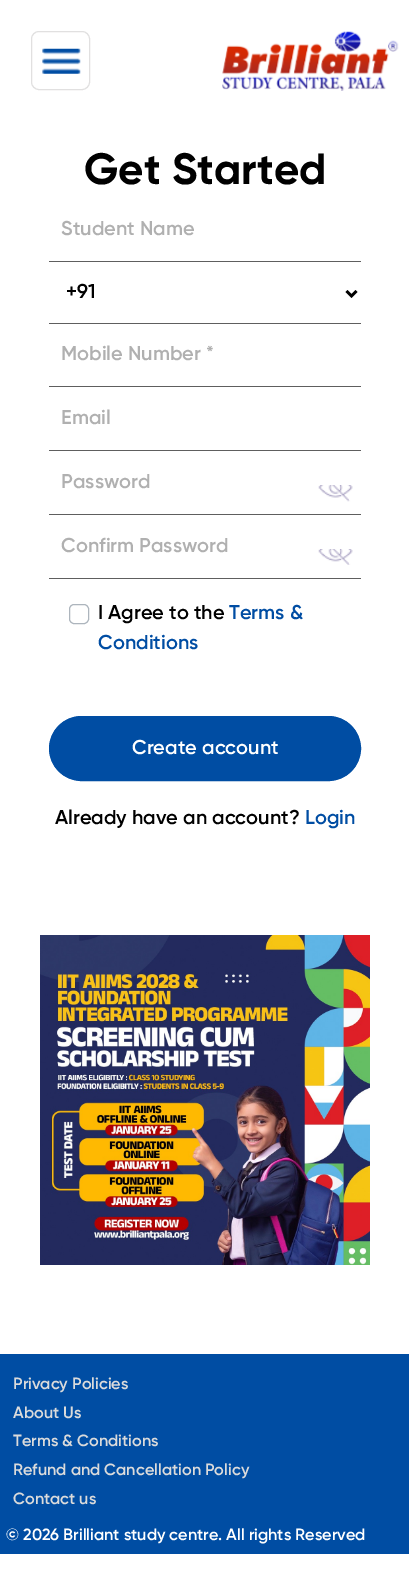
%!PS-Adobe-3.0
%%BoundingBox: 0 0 409 1574
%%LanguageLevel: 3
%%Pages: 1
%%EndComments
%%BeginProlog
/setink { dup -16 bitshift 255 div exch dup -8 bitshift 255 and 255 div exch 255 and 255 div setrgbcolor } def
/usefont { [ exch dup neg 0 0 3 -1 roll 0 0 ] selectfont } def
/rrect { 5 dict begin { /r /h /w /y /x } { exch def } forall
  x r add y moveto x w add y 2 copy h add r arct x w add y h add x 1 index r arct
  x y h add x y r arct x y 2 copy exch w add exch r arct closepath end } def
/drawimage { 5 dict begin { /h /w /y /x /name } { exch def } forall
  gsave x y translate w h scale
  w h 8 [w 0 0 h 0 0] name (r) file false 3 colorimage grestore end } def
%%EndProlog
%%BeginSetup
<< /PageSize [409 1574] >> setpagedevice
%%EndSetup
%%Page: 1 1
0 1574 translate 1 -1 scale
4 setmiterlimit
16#FFFFFF setink
0 0 409 1574 rectfill
16#E1E0E0 setink
31.5 31.5 58 58 7.5 rrect stroke
(img1.raw) 42 48 39 26 drawimage
(img2.raw) 222 31 177 60 drawimage
/Gilroy-Bold 43.75 usefont
16#000000 setink
84 184 moveto (Get Started) show
16#5E5E5E setink
49 261 312 1 rectfill
/Gilroy-SemiBold 20 usefont
16#B0B0B0 setink
61 235 moveto (Student Name) show
16#5E5E5E setink
49 323 312 1 rectfill
16#000000 setink
2.5 setlinewidth
346.5 291 moveto 351.5 296 lineto 356.5 291 lineto stroke
66 298 moveto (+91) show
16#5E5E5E setink
49 386 312 1 rectfill
16#B0B0B0 setink
61 360 moveto (Mobile Number *) show
16#5E5E5E setink
49 450 312 1 rectfill
16#B0B0B0 setink
61 424 moveto (Email) show
16#5E5E5E setink
49 514 312 1 rectfill
16#B0B0B0 setink
61 488 moveto (Password) show
(img3.raw) 318 485 35 17 drawimage
16#5E5E5E setink
49 578 312 1 rectfill
16#B0B0B0 setink
61 552 moveto (Confirm Password) show
(img4.raw) 318 549 35 16 drawimage
16#ADB5BD setink
1 setlinewidth
69.5 604.5 19 19 4.5 rrect stroke
16#000000 setink
98 619 moveto (I Agree to the) show
16#004DA3 setink
229 619 moveto (Terms &) show
98 649 moveto (Conditions) show
49.5 716.5 311 64 32 rrect gsave fill grestore
stroke
16#FFFFFF setink
132 754 moveto (Create account) show
16#000000 setink
55 824 moveto (Already have an account?) show
16#004DA3 setink
305 824 moveto (Login) show
(img5.raw) 40 935 330 330 drawimage
0 1354 409 200 rectfill
/Gilroy-SemiBold 16.25 usefont
16#DBDBDB setink
[
    [(Privacy Policies) 13 1389]
    [(About Us) 13 1418]
    [(Terms & Conditions) 13 1446]
    [(Refund and Cancellation Policy) 13 1475]
    [(Contact us) 13 1504]
] { aload pop moveto show } forall
16#FFFFFF setink
6 1540 moveto (© 2026 Brilliant study centre. All rights Reserved) show
showpage
%%EOF
